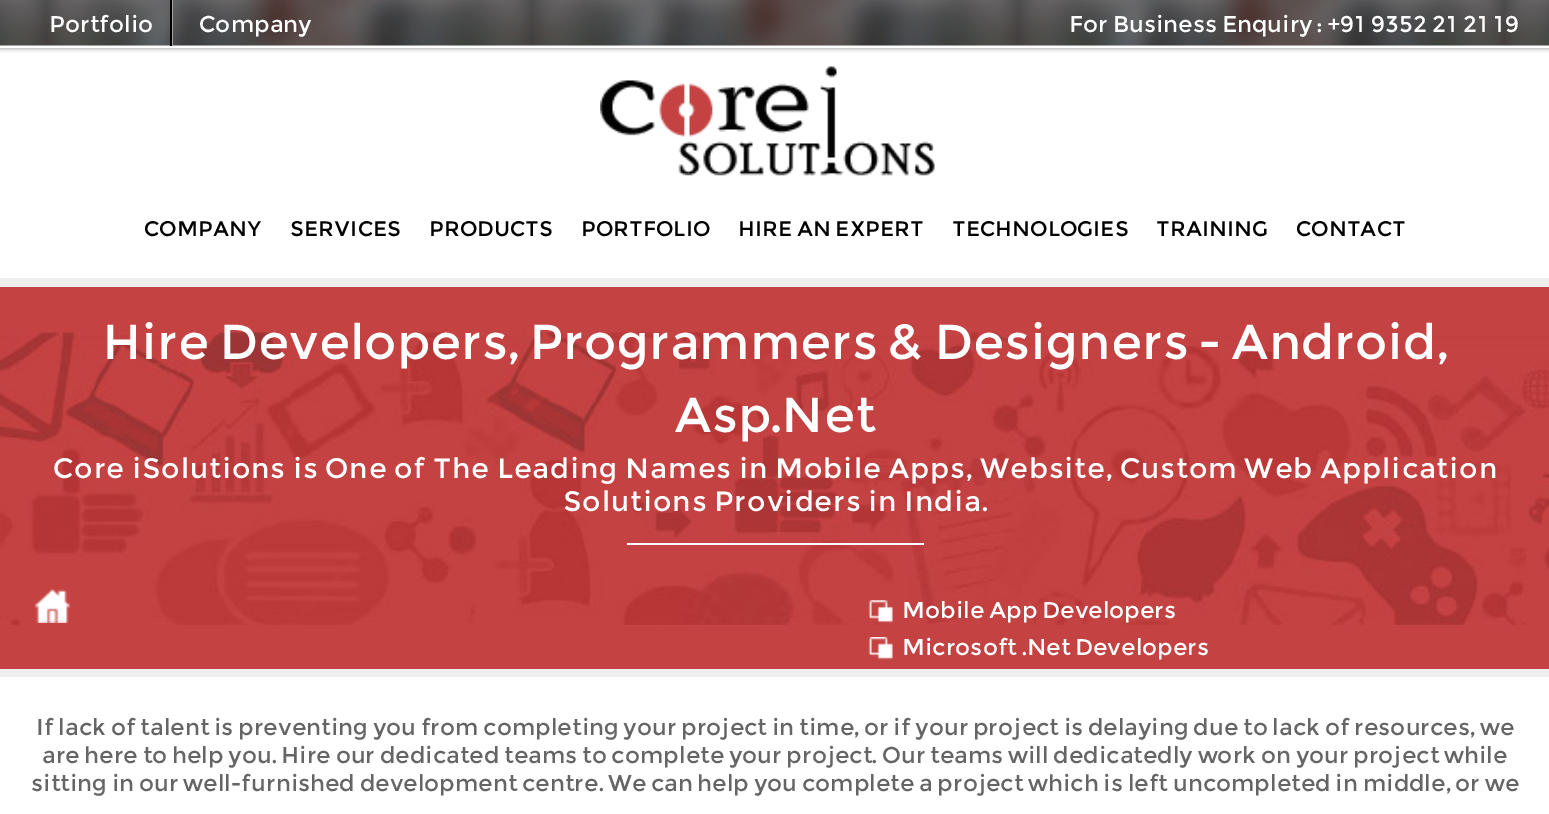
%!PS-Adobe-3.0
%%BoundingBox: 0 0 1549 814
%%LanguageLevel: 3
%%Pages: 1
%%EndComments
%%BeginProlog
/setink { dup -16 bitshift 255 div exch dup -8 bitshift 255 and 255 div exch 255 and 255 div setrgbcolor } def
/usefont { [ exch dup neg 0 0 3 -1 roll 0 0 ] selectfont } def
/setalpha { dup .setfillconstantalpha .setstrokeconstantalpha } def
/rrect { 5 dict begin { /r /h /w /y /x } { exch def } forall
  x r add y moveto x w add y 2 copy h add r arct x w add y h add x 1 index r arct
  x y h add x y r arct x y 2 copy exch w add exch r arct closepath end } def
/softshadow { 12 dict begin { /a /b /q /h /w /y /x } { exch def } forall gsave /was 0 def
  9 -2 -9 { dup b mul 4 div /e exch def 1 sub .425 mul 2.718 exch exp 1 add a .99 .min exch div /now exch def
    1 1 now sub 1 was sub div sub setalpha /was now def
    w h .min e 2 mul add 0 gt { x e sub y e sub w e 2 mul add h e 2 mul add
      q e add b .6 mul add w h .min 2 div e add .min 0 .max rrect fill } if } for grestore end } def
/drawimage { 5 dict begin { /h /w /y /x /name } { exch def } forall
  gsave x y translate w h scale
  w h 8 [w 0 0 h 0 0] name (r) file false 3 colorimage grestore end } def
%%EndProlog
%%BeginSetup
<< /PageSize [1549 814] /PageUsesTransparency true >> setpagedevice
%%EndSetup
%%Page: 1 1
0 .pushpdf14devicefilter
0 814 translate 1 -1 scale
4 setmiterlimit
16#FFFFFF setink
0 0 1549 814 rectfill
16#EEEEEE setink
0 278 1549 9 rectfill
16#AAAAAA setink
0 2 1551 47 0 2 1 softshadow
(img1.raw) 0 0 1549 46 drawimage
16#FFFFFF setink
0 46 1549 2 rectfill
16#A4A29F setink
33 46 moveto 173 46 lineto 173 0 lineto 172 0 lineto 172 46 lineto closepath fill
16#000000 setink
170 0 2 46 rectfill
/Montserrat-Regular 22.75 usefont
16#FFFFFF setink
[
    [(Portfolio) 49 32]
    [(Company) 199 32]
    [(For Business Enquiry : +91 9352 21 21 19) 1069 32]
] { aload pop moveto show } forall
(img2.raw) 600 66 335 110 drawimage
/Montserrat-Regular 21 usefont
16#000000 setink
[
    [(COMPANY) 144 236]
    [(SERVICES) 290 236]
    [(PRODUCTS) 429 236]
    [(PORTFOLIO) 581 236]
    [(HIRE AN EXPERT) 738 236]
    [(TECHNOLOGIES) 952 236]
    [(TRAINING) 1156 236]
    [(CONTACT) 1296 236]
] { aload pop moveto show } forall
16#C44242 setink
0 287 1549 382 rectfill
(img3.raw) 0 332 1549 293 drawimage
16#EEEEEE setink
0 669 1549 8 rectfill
/Montserrat-Regular 49 usefont
16#FFFFFF setink
102 359 moveto (Hire Developers, Programmers & Designers - Android,) show
674 432 moveto (Asp.Net) show
/Montserrat-Regular 28 usefont
53 478 moveto 0.88 0 (Core iSolutions is One of The Leading Names in Mobile Apps, Website, Custom Web Application) ashow
563 511 moveto 0.88 0 (Solutions Providers in India.) ashow
627 543 297 2 rectfill
(img4.raw) 35 589 35 34 drawimage
(img5.raw) 868 600 25 23 drawimage
/Montserrat-Regular 22.75 usefont
902 618 moveto (Mobile App Developers) show
(img6.raw) 868 637 25 23 drawimage
902 655 moveto (Microsoft .Net Developers) show
16#656565 setink
[
    [(If lack of talent is preventing you from completing your project in time, or if your project is delaying due to lack of resources, we) 36 735]
    [(are here to help you. Hire our dedicated teams to complete your project. Our teams will dedicatedly work on your project while) 42 763]
    [(sitting in our well-furnished development centre. We can help you complete a project which is left uncompleted in middle, or we) 31 791]
] { aload pop moveto show } forall
.poppdf14devicefilter showpage
%%EOF
